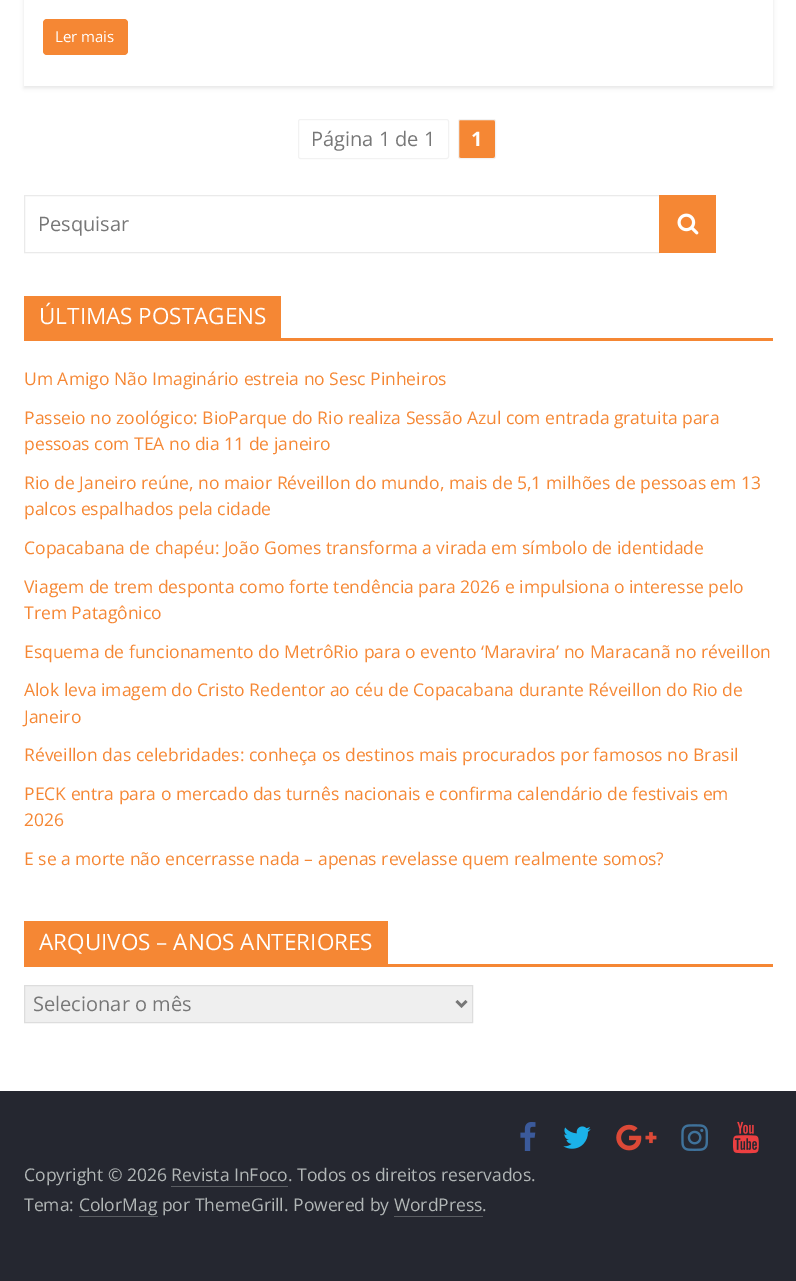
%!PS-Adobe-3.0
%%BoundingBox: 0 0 796 1281
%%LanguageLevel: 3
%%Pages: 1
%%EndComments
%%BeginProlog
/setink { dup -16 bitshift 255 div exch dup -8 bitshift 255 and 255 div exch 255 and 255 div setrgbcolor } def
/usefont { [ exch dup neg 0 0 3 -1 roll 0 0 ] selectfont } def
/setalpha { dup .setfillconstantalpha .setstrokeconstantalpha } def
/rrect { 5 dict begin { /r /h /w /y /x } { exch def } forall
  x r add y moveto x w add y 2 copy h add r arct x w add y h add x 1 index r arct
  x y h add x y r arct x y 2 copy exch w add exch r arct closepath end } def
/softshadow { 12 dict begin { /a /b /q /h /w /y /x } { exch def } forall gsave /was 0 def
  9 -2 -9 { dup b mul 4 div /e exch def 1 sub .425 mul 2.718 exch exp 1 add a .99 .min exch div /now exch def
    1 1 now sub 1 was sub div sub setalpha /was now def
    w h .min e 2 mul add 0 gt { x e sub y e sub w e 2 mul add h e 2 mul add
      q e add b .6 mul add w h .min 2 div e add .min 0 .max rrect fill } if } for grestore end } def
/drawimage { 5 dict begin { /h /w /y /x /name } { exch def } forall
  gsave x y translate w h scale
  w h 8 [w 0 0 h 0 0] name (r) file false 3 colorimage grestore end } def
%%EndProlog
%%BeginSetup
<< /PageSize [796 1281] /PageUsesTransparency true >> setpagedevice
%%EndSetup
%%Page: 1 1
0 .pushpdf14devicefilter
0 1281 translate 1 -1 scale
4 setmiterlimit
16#FFFFFF setink
0 0 796 1281 rectfill
gsave
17 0 moveto 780 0 lineto 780 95 lineto 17 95 lineto closepath 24 -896 moveto 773 -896 lineto 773 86 lineto 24 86 lineto closepath eoclip newpath
16#000000 setink
24 -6 749 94 0 2 0.1 softshadow
grestore
16#F58734 setink
43 19 85 36 4 rrect fill
/OpenSans-Regular 15 usefont
16#FFFFFF setink
55 42 moveto (Ler mais) show
16#F2F2F2 setink
298.5 119.5 150 39 2 rrect stroke
/OpenSans-Regular 20 usefont
16#777777 setink
311 146 moveto (Página 1 de 1) show
16#F58734 setink
458.5 119.5 37 39 2 rrect gsave fill grestore
16#F2F2F2 setink
stroke
/OpenSans-Bold 20 usefont
16#FFFFFF setink
471 146 moveto (1) show
16#EAEAEA setink
24.5 195.5 635 57 rectstroke
/OpenSans-Regular 20 usefont
16#777777 setink
38 231 moveto (Pesquisar) show
16#F58734 setink
659 195 57 58 rectfill
(img1.raw) 677 213 22 22 drawimage
24 338 749 3 rectfill
24 296 257 42 rectfill
/OpenSans-Regular 22.5 usefont
16#FFFFFF setink
39 324 moveto (ÚLTIMAS POSTAGENS) show
/OpenSans-Regular 17.5 usefont
16#F58734 setink
[
    [(Um Amigo Não Imaginário estreia no Sesc Pinheiros) 24 385]
    [(Passeio no zoológico: BioParque do Rio realiza Sessão Azul com entrada gratuita para) 24 424]
    [(pessoas com TEA no dia 11 de janeiro) 24 450]
    [(Rio de Janeiro reúne, no maior Réveillon do mundo, mais de 5,1 milhões de pessoas em 13) 24 489]
    [(palcos espalhados pela cidade) 24 515]
    [(Copacabana de chapéu: João Gomes transforma a virada em símbolo de identidade) 24 554]
    [(Viagem de trem desponta como forte tendência para 2026 e impulsiona o interesse pelo) 24 593]
    [(Trem Patagônico) 24 619]
    [(Esquema de funcionamento do MetrôRio para o evento ‘Maravira’ no Maracanã no réveillon) 24 658]
    [(Alok leva imagem do Cristo Redentor ao céu de Copacabana durante Réveillon do Rio de) 24 696]
    [(Janeiro) 24 723]
    [(Réveillon das celebridades: conheça os destinos mais procurados por famosos no Brasil) 24 761]
    [(PECK entra para o mercado das turnês nacionais e confirma calendário de festivais em) 24 800]
    [(2026) 24 826]
    [(E se a morte não encerrasse nada – apenas revelasse quem realmente somos?) 24 865]
] { aload pop moveto show } forall
24 964 749 3 rectfill
24 921 364 43 rectfill
/OpenSans-Regular 22.5 usefont
16#FFFFFF setink
39 950 moveto (ARQUIVOS – ANOS ANTERIORES) show
16#EFEFEF setink
24.5 985.5 moveto 472.5 985.5 lineto 472.5 1022.5 lineto 24.5 1022.5 lineto closepath gsave fill grestore
16#DDDDDD setink
stroke
16#777777 setink
2.5 setlinewidth
456.5 1001 moveto 461.5 1006 lineto 466.5 1001 lineto stroke
/OpenSans-Regular 20 usefont
33 1011 moveto (Selecionar o mês) show
16#252730 setink
0 1091 796 190 rectfill
(img2.raw) 520 1122 16 29 drawimage
(img3.raw) 563 1126 28 23 drawimage
(img4.raw) 616 1124 41 27 drawimage
(img5.raw) 681 1124 27 27 drawimage
(img6.raw) 733 1121 26 33 drawimage
/OpenSans-Regular 17.5 usefont
16#B1B6B6 setink
24 1181 moveto (Copyright © 2026 Revista InFoco. Todos os direitos reservados.) show
16#5A5D62 setink
171 1186 117 1 rectfill
16#B1B6B6 setink
24 1211 moveto (Tema: ColorMag por ThemeGrill. Powered by WordPress.) show
16#5A5D62 setink
79 1216 79 1 rectfill
394 1216 89 1 rectfill
.poppdf14devicefilter showpage
%%EOF
